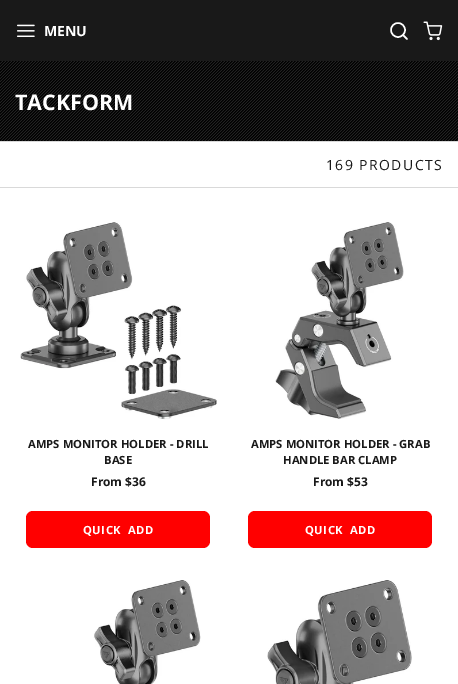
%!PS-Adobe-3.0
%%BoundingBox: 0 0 458 684
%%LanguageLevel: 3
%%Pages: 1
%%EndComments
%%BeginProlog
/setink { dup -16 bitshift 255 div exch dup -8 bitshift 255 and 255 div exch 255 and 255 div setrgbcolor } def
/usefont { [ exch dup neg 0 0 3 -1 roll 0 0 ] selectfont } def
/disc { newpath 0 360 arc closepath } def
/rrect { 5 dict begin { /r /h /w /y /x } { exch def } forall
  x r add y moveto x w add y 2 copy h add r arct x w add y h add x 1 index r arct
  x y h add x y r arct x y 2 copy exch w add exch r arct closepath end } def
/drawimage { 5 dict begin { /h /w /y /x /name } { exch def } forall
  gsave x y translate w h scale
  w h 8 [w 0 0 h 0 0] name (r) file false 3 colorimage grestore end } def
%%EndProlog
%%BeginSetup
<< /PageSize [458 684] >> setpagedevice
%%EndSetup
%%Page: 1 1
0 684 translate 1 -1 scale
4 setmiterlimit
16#FFFFFF setink
0 0 458 684 rectfill
16#191919 setink
0 0 458 61 rectfill
(img1.raw) 17 24 18 13 drawimage
/OpenSans-Bold 14 usefont
16#FFFFFF setink
44 36 moveto (MENU) show
1.5 setlinewidth
398 30 7 disc stroke
1 setlinecap
1 setlinejoin
407 39 moveto 403 35 lineto stroke
(img2.raw) 423 21 20 20 drawimage
16#000000 setink
0 61 458 80 rectfill
(img3.raw) 0 61 458 80 drawimage
/OpenSans-Bold 21.5 usefont
16#FFFFFF setink
15 110 moveto (TACKFORM) show
16#D9D9D9 setink
0 141 458 1 rectfill
0 187 458 1 rectfill
/OpenSans-Regular 14 usefont
16#191919 setink
326 170 moveto 1.4 0 (169 PRODUCTS) ashow
(img4.raw) 20 222 197 198 drawimage
/OpenSans-Bold 11.25 usefont
28 448 moveto (AMPS MONITOR HOLDER - DRILL) show
104 464 moveto (BASE) show
/OpenSans-Bold 12 usefont
91 486 moveto (From $36) show
16#FF0000 setink
26 511 184 37 7 rrect fill
/OpenSans-Bold 11.25 usefont
16#FFFFFF setink
83 534 moveto 3 0 32 0.5 0 (QUICK ADD) awidthshow
(img5.raw) 275 222 129 197 drawimage
16#191919 setink
251 448 moveto (AMPS MONITOR HOLDER - GRAB) show
283 464 moveto (HANDLE BAR CLAMP) show
/OpenSans-Bold 12 usefont
313 486 moveto (From $53) show
16#FF0000 setink
248 511 184 37 7 rrect fill
/OpenSans-Bold 11.25 usefont
16#FFFFFF setink
305 534 moveto 3 0 32 0.5 0 (QUICK ADD) awidthshow
(img6.raw) 93 580 108 104 drawimage
(img7.raw) 267 580 145 104 drawimage
showpage
%%EOF
